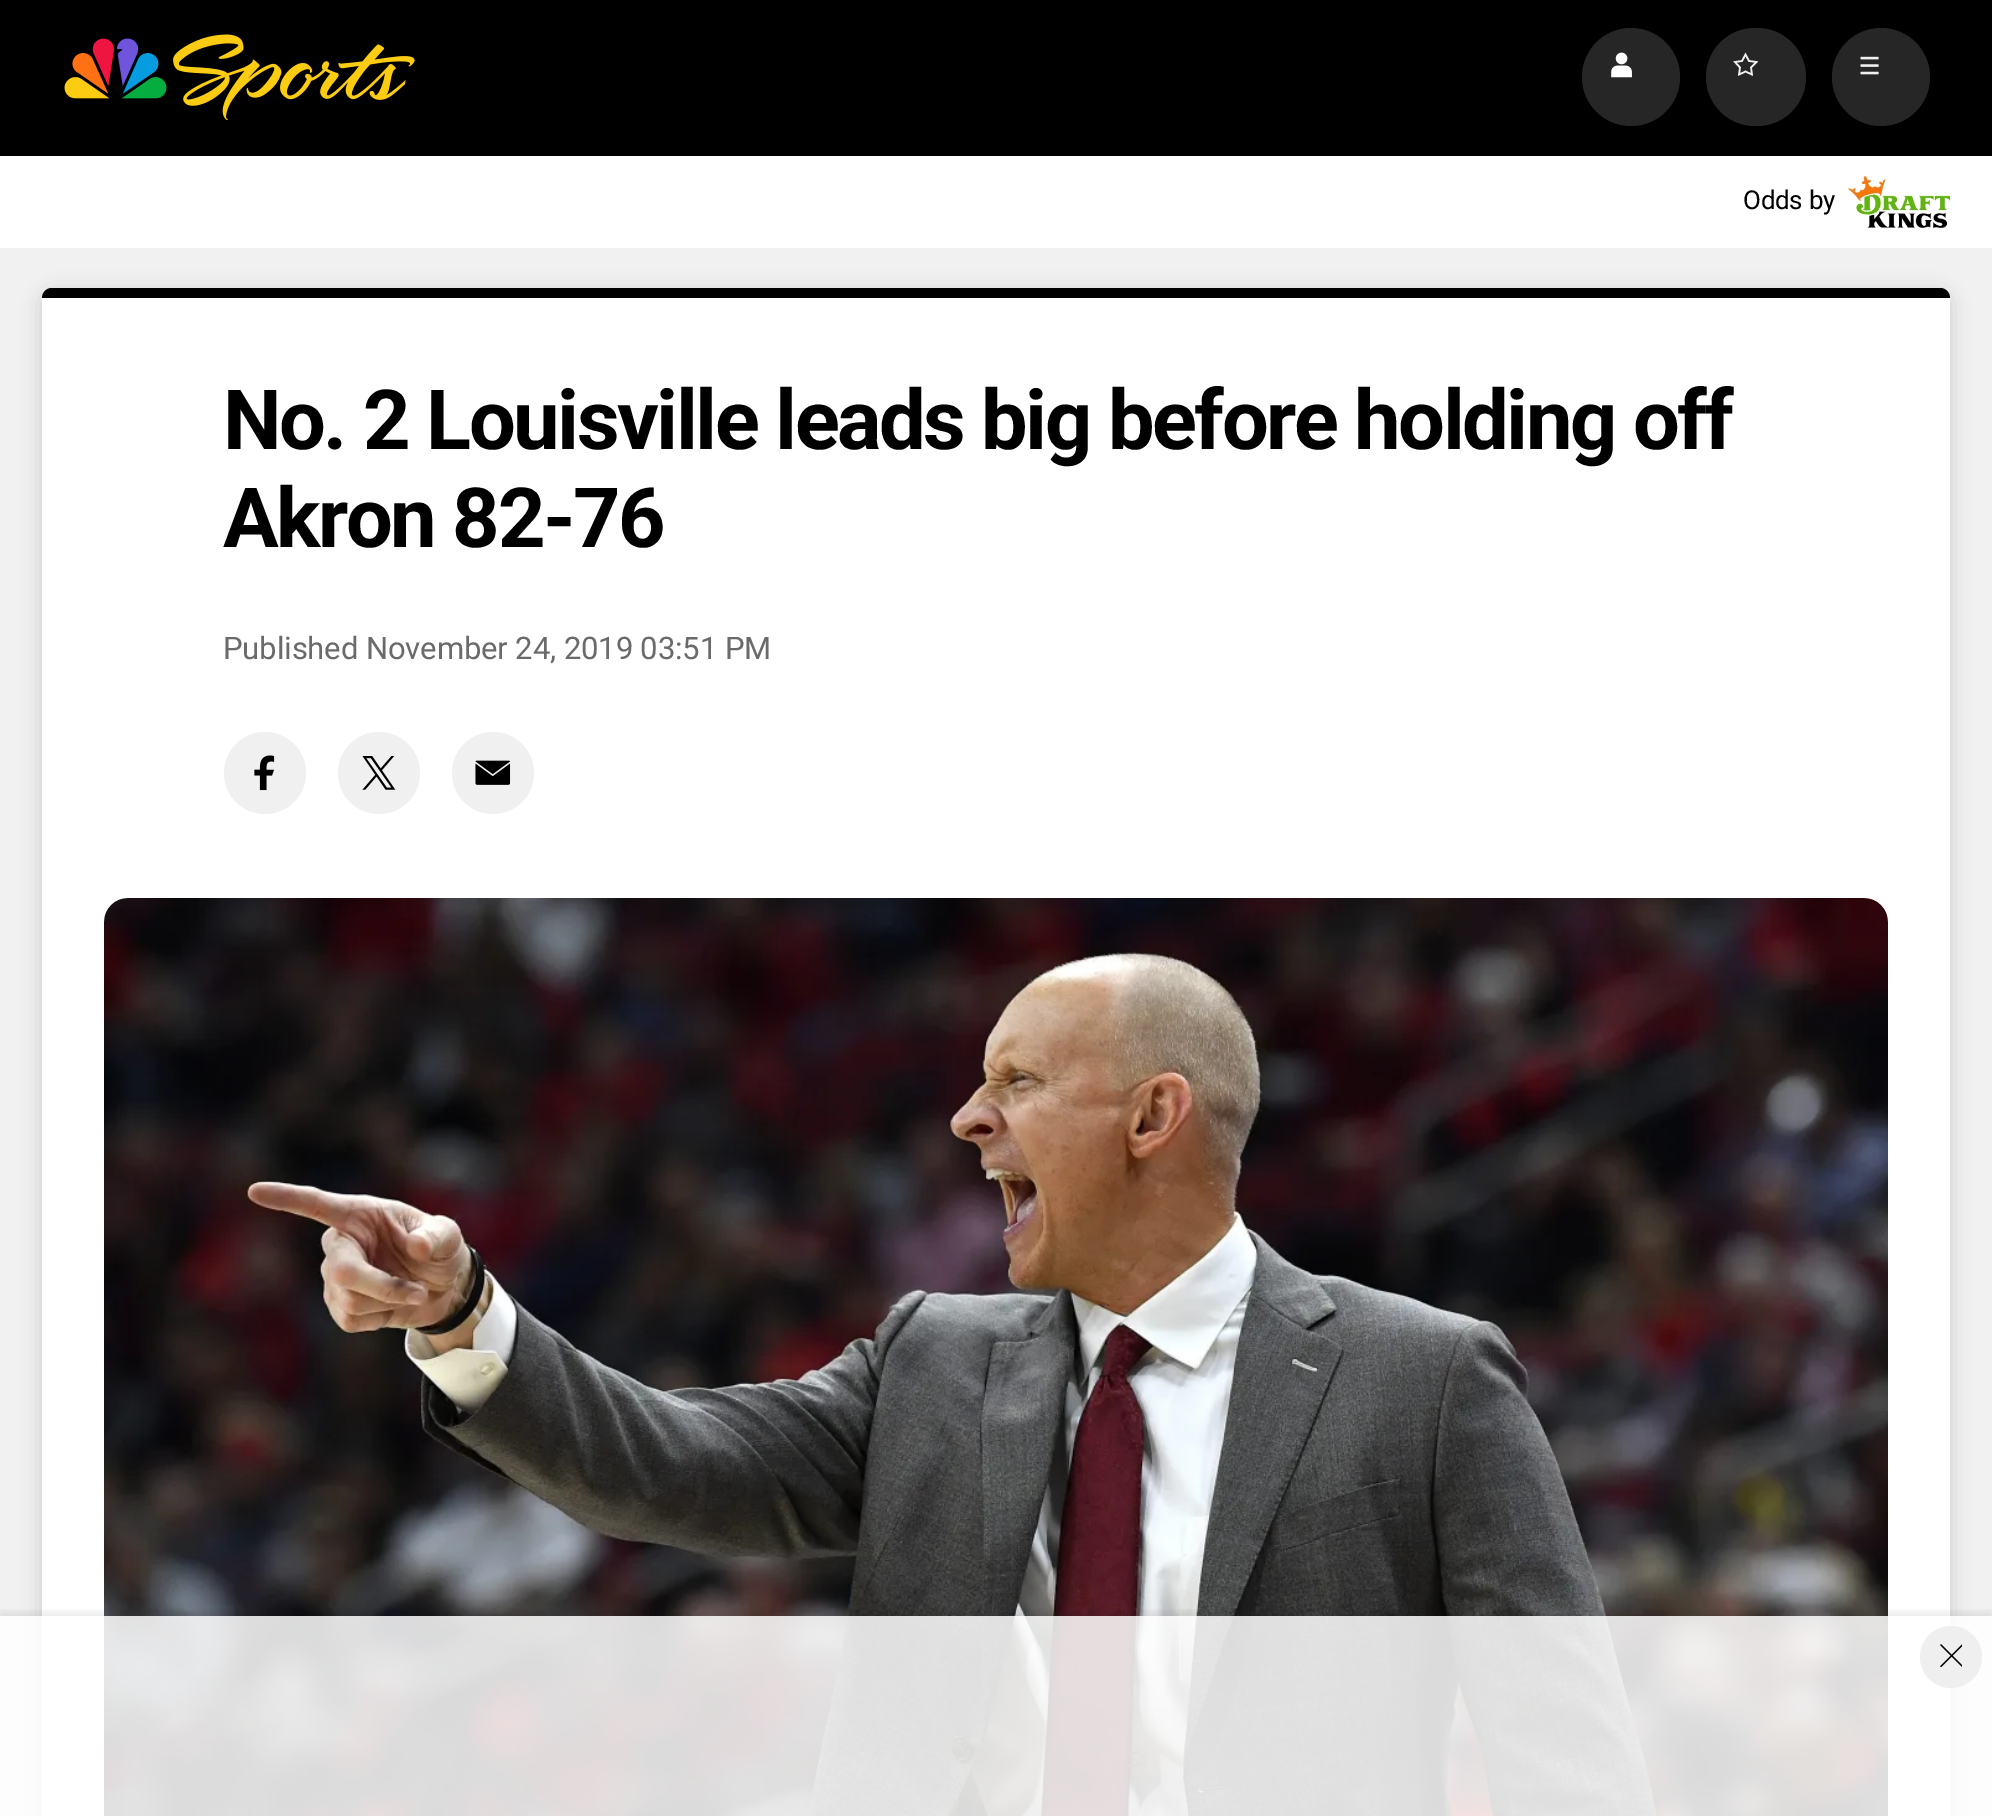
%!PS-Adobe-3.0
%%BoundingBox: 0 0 1992 1816
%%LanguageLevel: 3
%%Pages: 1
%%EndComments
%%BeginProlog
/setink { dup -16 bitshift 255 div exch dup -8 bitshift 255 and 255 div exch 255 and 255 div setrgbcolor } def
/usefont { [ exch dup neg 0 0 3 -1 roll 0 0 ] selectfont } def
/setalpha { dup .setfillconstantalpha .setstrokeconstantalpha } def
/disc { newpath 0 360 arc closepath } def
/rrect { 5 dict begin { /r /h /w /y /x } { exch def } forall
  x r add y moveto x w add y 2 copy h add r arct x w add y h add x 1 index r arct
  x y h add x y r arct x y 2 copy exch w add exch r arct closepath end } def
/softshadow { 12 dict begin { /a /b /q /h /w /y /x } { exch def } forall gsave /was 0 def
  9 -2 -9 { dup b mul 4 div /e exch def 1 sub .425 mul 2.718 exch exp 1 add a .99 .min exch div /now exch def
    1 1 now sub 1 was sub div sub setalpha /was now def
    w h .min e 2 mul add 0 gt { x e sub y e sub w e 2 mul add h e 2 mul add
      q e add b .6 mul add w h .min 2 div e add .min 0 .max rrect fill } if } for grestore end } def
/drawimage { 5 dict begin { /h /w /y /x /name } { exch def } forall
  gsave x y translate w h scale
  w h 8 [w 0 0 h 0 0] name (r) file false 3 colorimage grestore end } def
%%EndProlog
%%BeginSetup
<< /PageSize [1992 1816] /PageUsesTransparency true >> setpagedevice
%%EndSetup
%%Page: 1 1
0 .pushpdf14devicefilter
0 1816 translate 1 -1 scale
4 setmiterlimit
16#F1F1F1 setink
0 0 1992 1816 rectfill
16#000000 setink
0 0 1992 156 rectfill
(img1.raw) 64 34 351 86 drawimage
16#262626 setink
1631 77 49 disc fill
(img2.raw) 1611 52 21 26 drawimage
1706 28 100 98 49 rrect fill
16#F0F0F0 setink
1.6 setlinewidth
1745.5 54.5 moveto 1749 61 lineto 1756.5 62 lineto 1751 67.5 lineto 1752 74.5 lineto 1745.5 71.5 lineto 1739 74.5 lineto 1740 67.5 lineto 1735 62 lineto 1742 61 lineto closepath stroke
16#262626 setink
1881 77 49 disc fill
(img3.raw) 1860 56 19 19 drawimage
16#FFFFFF setink
0 156 1992 92 rectfill
/Roboto-Regular 26 usefont
16#000000 setink
1743 209 moveto -0.25 0 (Odds by) ashow
(img4.raw) 1848 176 102 52 drawimage
42 292 1908 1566 12 10 0.15 softshadow
16#FFFFFF setink
42 288 1908 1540 12 rrect fill
16#000000 setink
52 288 moveto 1940 288 lineto 1945.5 288 1950 292.5 1950 298 curveto 42 298 lineto 42 292.5 46.5 288 52 288 curveto closepath fill
/Roboto-Bold 83 usefont
223 449 moveto -2.5 0 (No. 2 Louisville leads big before holding off) ashow
223 547 moveto -2.5 0 (Akron 82-76) ashow
/Roboto-Regular 31.1 usefont
16#6A6A6A setink
223 659 moveto -0.15 0 (Published November 24, 2019 03:51 PM) ashow
16#F0F0F0 setink
265 773 41 disc fill
(img5.raw) 254 755 21 36 drawimage
379 773 41 disc fill
(img6.raw) 362 756 34 34 drawimage
493 773 41 disc fill
(img7.raw) 475 760 36 25 drawimage
(img8.raw) 104 898 1784 918 drawimage
gsave
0 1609 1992 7 rectclip
16#000000 setink
0 1612 1992 200 0 4 0.08 softshadow
grestore
0.85 setalpha
16#FFFFFF setink
0 1616 1992 200 rectfill
1 setalpha
16#EFEFEF setink
1951 1657 31 disc fill
(img9.raw) 1940 1644 22 23 drawimage
.poppdf14devicefilter showpage
%%EOF
